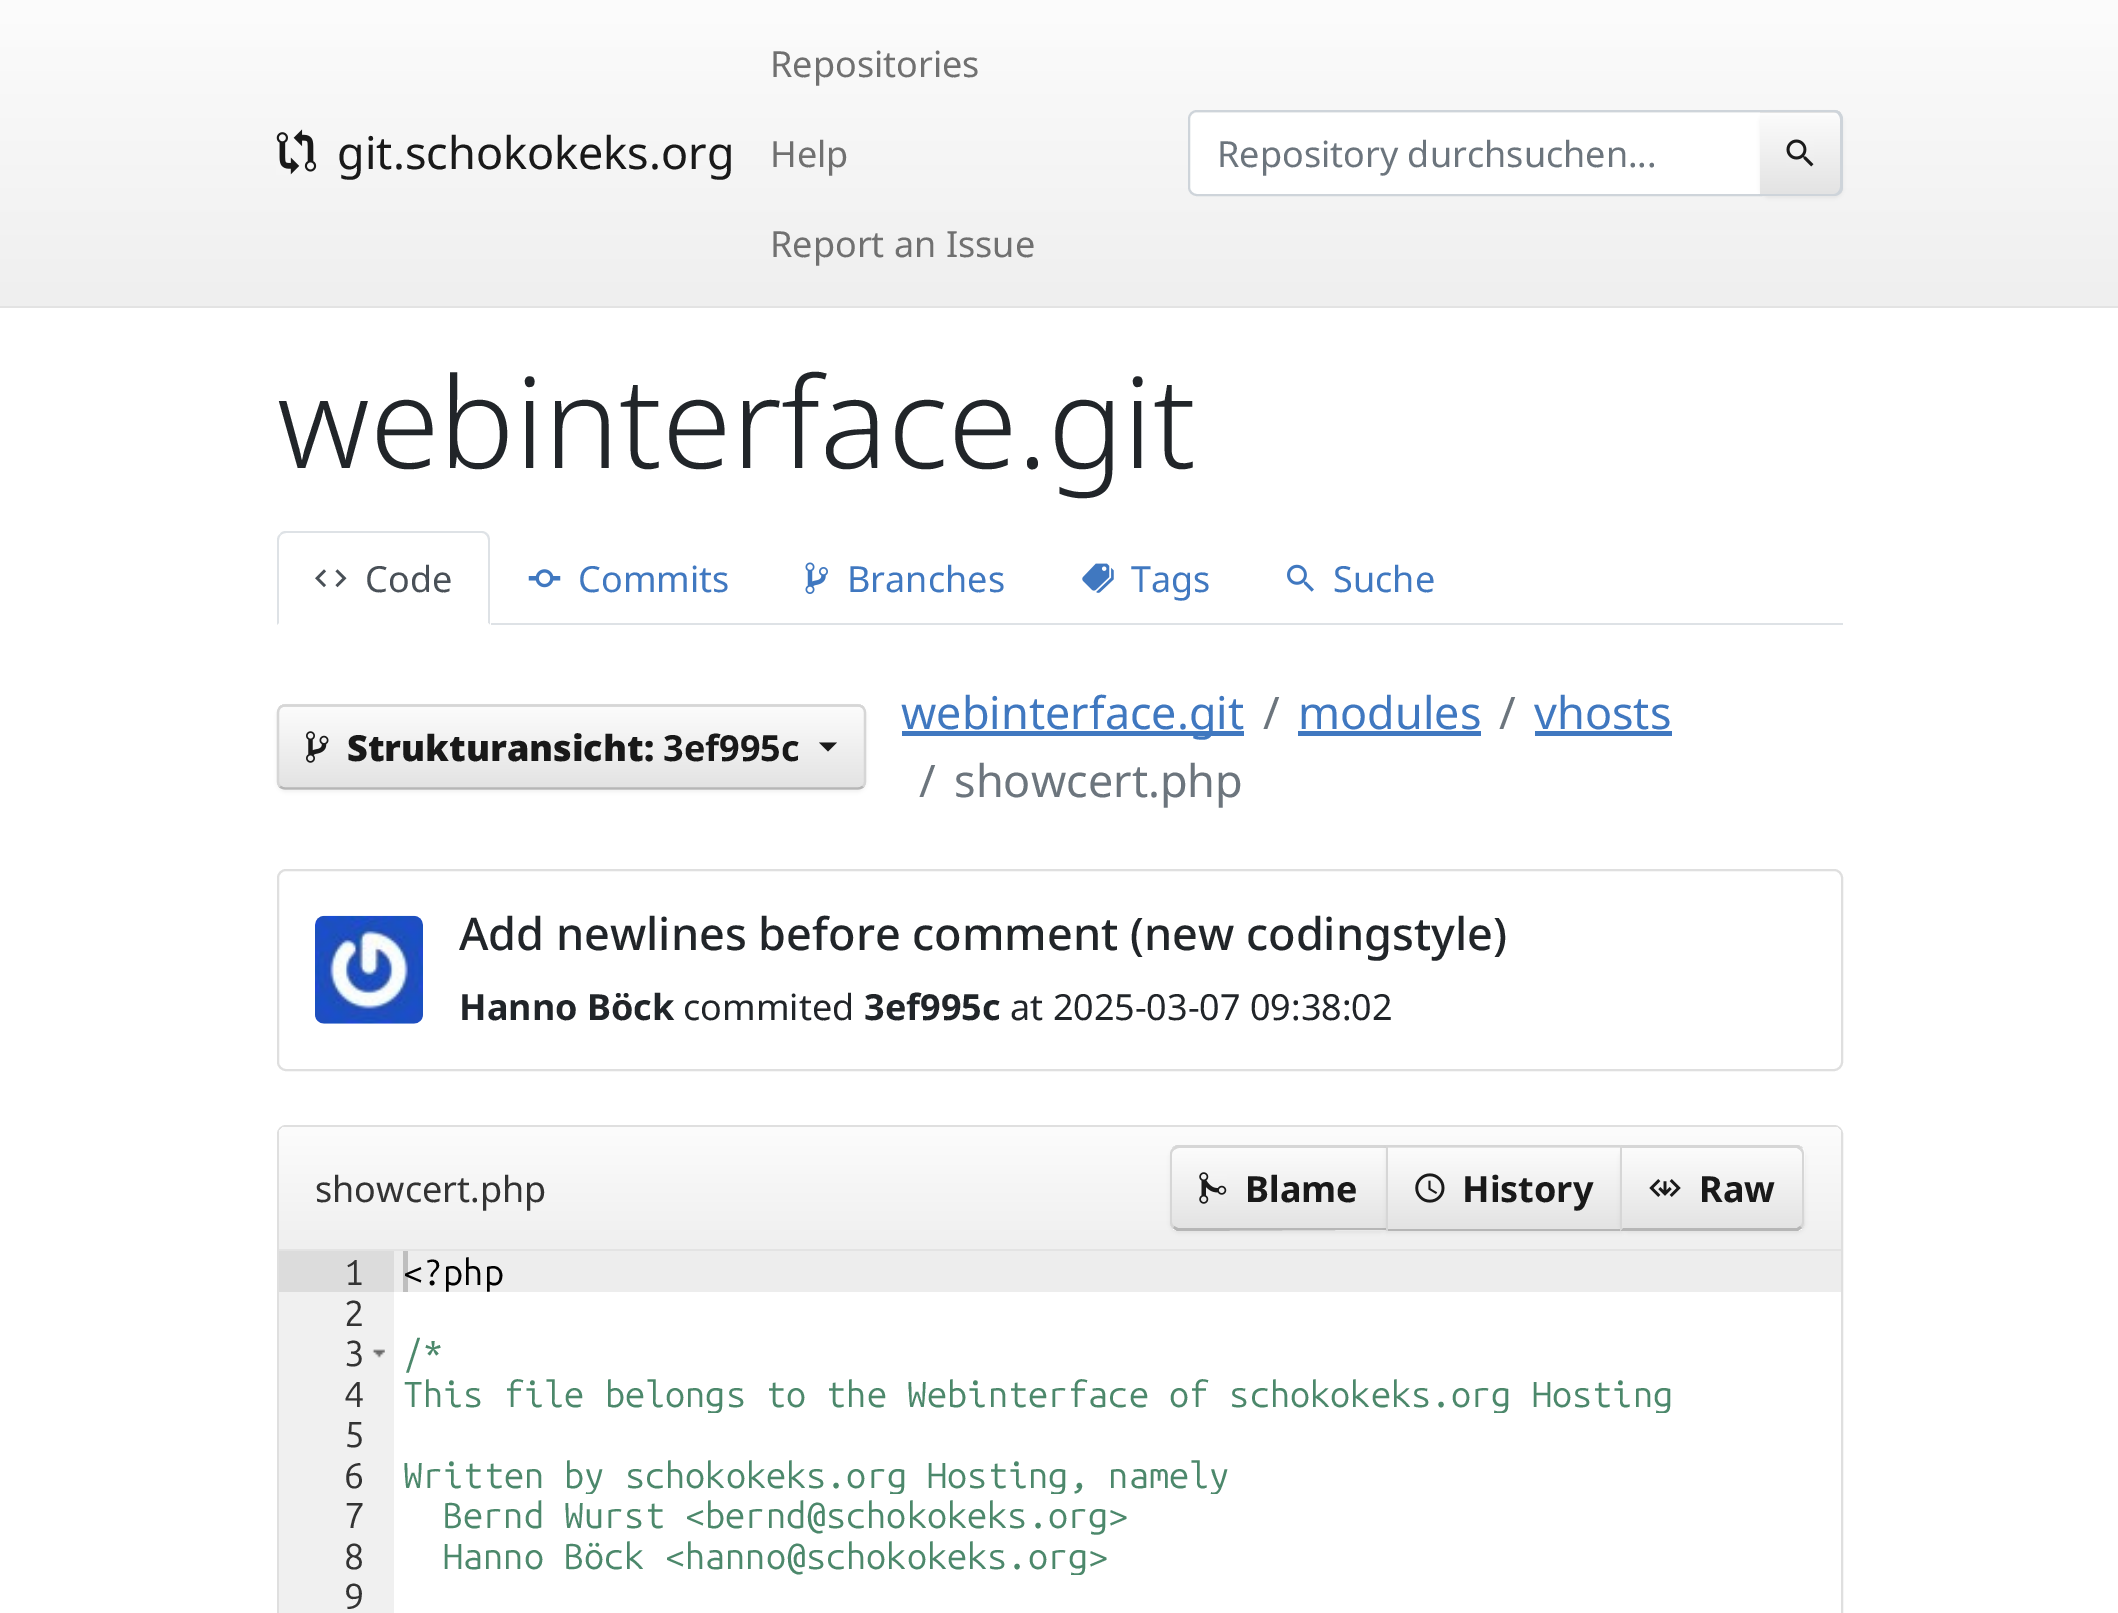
%!PS-Adobe-3.0
%%BoundingBox: 0 0 2118 1613
%%LanguageLevel: 3
%%Pages: 1
%%EndComments
%%BeginProlog
/setink { dup -16 bitshift 255 div exch dup -8 bitshift 255 and 255 div exch 255 and 255 div setrgbcolor } def
/usefont { [ exch dup neg 0 0 3 -1 roll 0 0 ] selectfont } def
/setalpha { dup .setfillconstantalpha .setstrokeconstantalpha } def
/rrect { 5 dict begin { /r /h /w /y /x } { exch def } forall
  x r add y moveto x w add y 2 copy h add r arct x w add y h add x 1 index r arct
  x y h add x y r arct x y 2 copy exch w add exch r arct closepath end } def
/softshadow { 12 dict begin { /a /b /q /h /w /y /x } { exch def } forall gsave /was 0 def
  9 -2 -9 { dup b mul 4 div /e exch def 1 sub .425 mul 2.718 exch exp 1 add a .99 .min exch div /now exch def
    1 1 now sub 1 was sub div sub setalpha /was now def
    w h .min e 2 mul add 0 gt { x e sub y e sub w e 2 mul add h e 2 mul add
      q e add b .6 mul add w h .min 2 div e add .min 0 .max rrect fill } if } for grestore end } def
/drawimage { 5 dict begin { /h /w /y /x /name } { exch def } forall
  gsave x y translate w h scale
  w h 8 [w 0 0 h 0 0] name (r) file false 3 colorimage grestore end } def
%%EndProlog
%%BeginSetup
<< /PageSize [2118 1613] /PageUsesTransparency true >> setpagedevice
%%EndSetup
%%Page: 1 1
0 .pushpdf14devicefilter
0 1613 translate 1 -1 scale
4 setmiterlimit
16#FFFFFF setink
0 0 2118 1613 rectfill
gsave 0 0 moveto 2118 0 lineto 2118 306 lineto 0 306 lineto closepath clip newpath
<< /ShadingType 2 /ColorSpace /DeviceRGB /Coords [1060 0 1060 306] /Extend [true true] /Function << /FunctionType 2 /Domain [0 1] /C0 [0.988 0.988 0.988] /C1 [0.937 0.937 0.937] /N 1 >> >> shfill grestore
16#E3E3E3 setink
0 306 2118 2 rectfill
(img1.raw) 276 129 41 46 drawimage
/NotoSans-Regular 45 usefont
16#191919 setink
337 169 moveto (git.schokokeks.org) show
/NotoSans-Regular 36 usefont
16#707070 setink
[
    [(Repositories) 770 77]
    [(Help) 770 167]
    [(Report an Issue) 770 257]
] { aload pop moveto show } forall
16#FFFFFF setink
1197 113 moveto 1760 113 lineto 1760 194 lineto 1197 194 lineto 1193 194 1190 191 1190 187 curveto 1190 120 lineto 1190 116 1193 113 1197 113 curveto closepath fill
16#CED4DA setink
2 setlinewidth
1197 111 moveto 1761 111 lineto 1761 195 lineto 1197 195 lineto 1192.5 195 1189 191.5 1189 187 curveto 1189 119 lineto 1189 114.5 1192.5 111 1197 111 curveto closepath stroke
16#6C757D setink
1217 167 moveto (Repository durchsuchen...) show
16#000000 setink
1760 113 83 85 9 2 0.05 softshadow
gsave
1760 110 moveto 1834 110 lineto 1839 110 1843 114 1843 119 curveto 1843 187 lineto 1843 192 1839 196 1834 196 curveto 1760 196 lineto closepath clip newpath
gsave 1760 110 moveto 1843 110 lineto 1843 113 lineto 1760 113 lineto closepath clip newpath
<< /ShadingType 2 /ColorSpace /DeviceRGB /Coords [1800 31 1800 113] /Extend [true true] /Function << /FunctionType 2 /Domain [0 1] /C0 [0.988 0.988 0.988] /C1 [0.89 0.89 0.89] /N 1 >> >> shfill grestore
gsave 1760 113 moveto 1843 113 lineto 1843 194 lineto 1760 194 lineto closepath clip newpath
<< /ShadingType 2 /ColorSpace /DeviceRGB /Coords [1800 113 1800 194] /Extend [true true] /Function << /FunctionType 2 /Domain [0 1] /C0 [0.988 0.988 0.988] /C1 [0.89 0.89 0.89] /N 1 >> >> shfill grestore
grestore
0.2 setalpha
16#FFFFFF setink
1760 115 moveto 1835 115 lineto 1842 117 1840 129 1840 133 curveto 1840 191 lineto 1841 190 1841 188 1841 187 curveto 1841 120 lineto 1841 116 1838 113 1834 113 curveto 1760 113 lineto closepath fill
1 setalpha
16#CED4DA setink
1760 110 moveto 1834 110 lineto 1839 110 1843 114 1843 119 curveto 1843 187 lineto 1843 192 1839 196 1834 196 curveto 1760 196 lineto closepath 1760 112 moveto 1834 112 lineto 1837 112 1840 116 1840 119 curveto 1840 187 lineto 1840 190 1837 194 1834 194 curveto 1760 194 lineto closepath eofill
(img2.raw) 1786 139 28 28 drawimage
/NotoSans-Light 126 usefont
16#212529 setink
277 468 moveto (webinterface.git) show
16#DEE2E6 setink
491 623 1352 2 rectfill
286 531 moveto 283 531 281 532 280 534 curveto 281 535 lineto 282 534 284 533 286 533 curveto 482 533 lineto 484 533 485 534 486 535 curveto 488 534 lineto 486 532 484 531 482 531 curveto closepath fill
488 534 moveto 489 535 490 538 490 540 curveto 490 625 lineto 488 623 lineto 488 540 lineto 488 538 487 536 486 535 curveto closepath fill
16#FFFFFF setink
277 626 moveto 279 623 lineto 488 623 lineto 490 625 lineto 490 626 lineto closepath fill
16#DEE2E6 setink
280 534 moveto 278 535 277 538 277 540 curveto 277 625 lineto 279 623 lineto 279 540 lineto 279 538 280 536 281 535 curveto closepath fill
(img3.raw) 315 569 32 19 drawimage
/NotoSans-Regular 36 usefont
16#495057 setink
365 592 moveto (Code) show
(img4.raw) 528 569 33 19 drawimage
16#4078C0 setink
578 592 moveto (Commits) show
(img5.raw) 805 562 23 32 drawimage
847 592 moveto (Branches) show
(img6.raw) 1082 563 32 30 drawimage
1131 592 moveto (Tags) show
(img7.raw) 1287 564 27 28 drawimage
1333 592 moveto (Suche) show
16#000000 setink
277 707 589 85 9 2 0.05 softshadow
16#FCFCFC setink
277 704 589 86 9 rrect fill
gsave
277 704 589 86 9 rrect clip newpath
gsave 277 704 moveto 866 704 lineto 866 707 lineto 277 707 lineto closepath clip newpath
<< /ShadingType 2 /ColorSpace /DeviceRGB /Coords [572 626 572 707] /Extend [true true] /Function << /FunctionType 2 /Domain [0 1] /C0 [0.988 0.988 0.988] /C1 [0.89 0.89 0.89] /N 1 >> >> shfill grestore
gsave 277 707 moveto 866 707 lineto 866 788 lineto 277 788 lineto closepath clip newpath
<< /ShadingType 2 /ColorSpace /DeviceRGB /Coords [572 707 572 788] /Extend [true true] /Function << /FunctionType 2 /Domain [0 1] /C0 [0.988 0.988 0.988] /C1 [0.89 0.89 0.89] /N 1 >> >> shfill grestore
grestore
16#B6B6B6 setink
2.2 setlinewidth
863 786.5 moveto 861.5 788 859.5 788.5 857 788.5 curveto 286 788.5 lineto 283.5 788.5 281.5 788 280 786.5 curveto stroke
16#D6D6D6 setink
280 786.5 moveto 278.5 785 278 783 278 781 curveto 278 713 lineto 278 711 278.5 709 280 707.5 curveto 281.5 706 283.5 705.5 286 705.5 curveto 857 705.5 lineto 859.5 705.5 861.5 706 863 707.5 curveto 864.5 709 865 711 865 713 curveto 865 781 lineto 865 783 864.5 785 863 786.5 curveto stroke
(img8.raw) 306 731 23 32 drawimage
/NotoSans-Black 36 usefont
16#191919 setink
347 761 moveto (Strukturansicht:) show
/NotoSans-Bold 36 usefont
663 761 moveto (3ef995c) show
16#1A1A1A setink
819 742.5 moveto 837 742.5 lineto 828 751.5 lineto closepath fill
16#4078C0 setink
902 731 342 5 rectfill
/NotoSans-Regular 45 usefont
901 729 moveto (webinterface.git) show
16#6C757D setink
1263 729 moveto (/) show
16#4078C0 setink
1298 729 moveto (modules) show
1298 731 183 5 rectfill
16#6C757D setink
1499 729 moveto (/) show
16#4078C0 setink
1534 729 moveto (vhosts) show
1535 731 137 5 rectfill
16#6C757D setink
919 797 moveto (/) show
954 797 moveto (showcert.php) show
16#DFDFDF setink
2 setlinewidth
278 870 1564 200 8 rrect stroke
(img9.raw) 315 915 108 109 drawimage
/NotoSans-Medium 45 usefont
16#212529 setink
459 950 moveto (Add newlines before comment \(new codingstyle\)) show
/NotoSans-Bold 36 usefont
459 1020 moveto (Hanno Böck) show
/NotoSans-Regular 36 usefont
683 1020 moveto (commited) show
/NotoSans-Bold 36 usefont
864 1020 moveto (3ef995c) show
/NotoSans-Regular 36 usefont
1010 1020 moveto (at 2025-03-07 09:38:02) show
16#DFDFDF setink
278 1126 1564 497 8 rrect stroke
gsave 286 1127 moveto 1834 1127 lineto 1838 1127 1841 1130 1841 1134 curveto 1841 1249 lineto 279 1249 lineto 279 1134 lineto 279 1130 282 1127 286 1127 curveto closepath clip newpath
<< /ShadingType 2 /ColorSpace /DeviceRGB /Coords [1060 1127 1060 1249] /Extend [true true] /Function << /FunctionType 2 /Domain [0 1] /C0 [0.988 0.988 0.988] /C1 [0.937 0.937 0.937] /N 1 >> >> shfill grestore
16#E3E3E3 setink
279 1249 1562 2 rectfill
16#333333 setink
315 1202 moveto (showcert.php) show
16#000000 setink
1170 1148 218 85 9 2 0.05 softshadow
gsave
1179 1145 moveto 1388 1145 lineto 1388 1231 lineto 1179 1231 lineto 1174 1231 1170 1227 1170 1222 curveto 1170 1154 lineto 1170 1149 1174 1145 1179 1145 curveto closepath clip newpath
gsave 1170 1145 moveto 1177 1145 lineto 1177 1148 lineto 1170 1148 lineto closepath clip newpath
<< /ShadingType 2 /ColorSpace /DeviceRGB /Coords [1279 1067 1279 1148] /Extend [true true] /Function << /FunctionType 2 /Domain [0 1] /C0 [0.988 0.988 0.988] /C1 [0.89 0.89 0.89] /N 1 >> >> shfill grestore
gsave 1170 1148 moveto 1386 1148 lineto 1386 1229 lineto 1170 1229 lineto closepath clip newpath
<< /ShadingType 2 /ColorSpace /DeviceRGB /Coords [1279 1148 1279 1229] /Extend [true true] /Function << /FunctionType 2 /Domain [0 1] /C0 [0.988 0.988 0.988] /C1 [0.89 0.89 0.89] /N 1 >> >> shfill grestore
gsave 1170 1229 moveto 1388 1229 lineto 1388 1231 lineto 1170 1231 lineto closepath clip newpath
<< /ShadingType 2 /ColorSpace /DeviceRGB /Coords [1279 1229 1279 1310] /Extend [true true] /Function << /FunctionType 2 /Domain [0 1] /C0 [0.988 0.988 0.988] /C1 [0.89 0.89 0.89] /N 1 >> >> shfill grestore
grestore
16#D6D6D6 setink
1179 1148 moveto 1177 1148 1176 1149 1174 1150 curveto 1173 1148 lineto 1174 1147 1175 1146 1177 1145 curveto 1388 1145 lineto 1386 1148 lineto closepath fill
16#B6B6B6 setink
1177 1231 moveto 1175 1230 1174 1229 1173 1228 curveto 1174 1226 lineto 1178 1228 lineto 1386 1228 lineto 1388 1230 lineto closepath fill
16#D6D6D6 setink
1170 1154 moveto 1170 1222 lineto 1170 1224 1171 1227 1173 1228 curveto 1174 1226 lineto 1173 1225 1172 1224 1172 1222 curveto 1172 1154 lineto 1172 1152 1173 1151 1174 1150 curveto 1173 1148 lineto 1171 1149 1170 1152 1170 1154 curveto closepath fill
(img10.raw) 1199 1172 28 32 drawimage
/NotoSans-Bold 36 usefont
16#191919 setink
1245 1202 moveto (Blame) show
16#000000 setink
1386 1148 236 85 0 2 0.05 softshadow
gsave 1386 1147 moveto 1622 1147 lineto 1622 1148 lineto 1386 1148 lineto closepath clip newpath
<< /ShadingType 2 /ColorSpace /DeviceRGB /Coords [1504 1067 1504 1148] /Extend [true true] /Function << /FunctionType 2 /Domain [0 1] /C0 [0.988 0.988 0.988] /C1 [0.89 0.89 0.89] /N 1 >> >> shfill grestore
gsave 1388 1148 moveto 1620 1148 lineto 1620 1229 lineto 1388 1229 lineto closepath clip newpath
<< /ShadingType 2 /ColorSpace /DeviceRGB /Coords [1504 1148 1504 1229] /Extend [true true] /Function << /FunctionType 2 /Domain [0 1] /C0 [0.988 0.988 0.988] /C1 [0.89 0.89 0.89] /N 1 >> >> shfill grestore
[
    [1386 1145 236 2 16#D6D6D6]
    [1386 1229 236 2 16#B6B6B6]
    [1386 1145 2 86 16#D6D6D6]
] { aload pop setink rectfill } forall
(img11.raw) 1415 1173 30 30 drawimage
16#191919 setink
1462 1202 moveto (History) show
16#000000 setink
1620 1148 185 85 9 2 0.05 softshadow
gsave
1620 1145 moveto 1796 1145 lineto 1801 1145 1805 1149 1805 1154 curveto 1805 1222 lineto 1805 1227 1801 1231 1796 1231 curveto 1620 1231 lineto closepath clip newpath
gsave 1620 1145 moveto 1805 1145 lineto 1805 1148 lineto 1620 1148 lineto closepath clip newpath
<< /ShadingType 2 /ColorSpace /DeviceRGB /Coords [1712 1067 1712 1148] /Extend [true true] /Function << /FunctionType 2 /Domain [0 1] /C0 [0.988 0.988 0.988] /C1 [0.89 0.89 0.89] /N 1 >> >> shfill grestore
gsave 1622 1148 moveto 1805 1148 lineto 1805 1229 lineto 1622 1229 lineto closepath clip newpath
<< /ShadingType 2 /ColorSpace /DeviceRGB /Coords [1712 1148 1712 1229] /Extend [true true] /Function << /FunctionType 2 /Domain [0 1] /C0 [0.988 0.988 0.988] /C1 [0.89 0.89 0.89] /N 1 >> >> shfill grestore
gsave 1620 1229 moveto 1805 1229 lineto 1805 1231 lineto 1620 1231 lineto closepath clip newpath
<< /ShadingType 2 /ColorSpace /DeviceRGB /Coords [1712 1229 1712 1310] /Extend [true true] /Function << /FunctionType 2 /Domain [0 1] /C0 [0.988 0.988 0.988] /C1 [0.89 0.89 0.89] /N 1 >> >> shfill grestore
grestore
16#D6D6D6 setink
1620 1145 moveto 1798 1145 lineto 1799 1146 1801 1147 1802 1148 curveto 1800 1150 lineto 1797 1148 lineto 1623 1148 lineto closepath fill
1802 1148 moveto 1803 1150 1804 1152 1804 1154 curveto 1804 1222 lineto 1804 1224 1803 1226 1802 1228 curveto 1800 1226 lineto 1801 1225 1802 1224 1802 1222 curveto 1802 1154 lineto 1802 1152 1801 1151 1800 1150 curveto closepath fill
16#B6B6B6 setink
1798 1231 moveto 1620 1231 lineto 1623 1228 lineto 1797 1228 lineto 1800 1226 lineto 1802 1228 lineto 1801 1229 1799 1230 1798 1231 curveto closepath fill
16#D6D6D6 setink
1622 1148 moveto 1623 1148 lineto 1620 1145 lineto 1620 1231 lineto 1623 1228 lineto 1622 1228 lineto closepath fill
(img12.raw) 1649 1179 32 18 drawimage
16#191919 setink
1699 1202 moveto (Raw) show
16#F0F0F0 setink
279 1292 115 321 rectfill
16#DCDCDC setink
279 1251 115 41 rectfill
/UbuntuMono-Regular 36 usefont
16#333333 setink
[
    [(1) 344 1285]
    [(2) 344 1326]
    [(3) 344 1366]
] { aload pop moveto show } forall
(img13.raw) 372 1349 13 9 drawimage
[
    [(4) 344 1407]
    [(5) 344 1447]
    [(6) 344 1488]
    [(7) 344 1528]
    [(8) 344 1569]
    [(9) 344 1609]
] { aload pop moveto show } forall
16#EDEDED setink
394 1251 1447 41 rectfill
16#000000 setink
403 1285 moveto (<?php) show
0.2 setalpha
403 1251 5 41 rectfill
1 setalpha
16#4C886B setink
403 1366 moveto (/*) show
gsave
403 1373 1438 40 rectclip
403 1407 moveto (This file belongs to the Webinterface of schokokeks.org Hosting) show
grestore
gsave
403 1454 1438 40 rectclip
403 1488 moveto (Written by schokokeks.org Hosting, namely) show
grestore
443 1528 moveto (Bernd Wurst <bernd@schokokeks.org>) show
gsave
403 1535 1438 40 rectclip
443 1569 moveto (Hanno Böck <hanno@schokokeks.org>) show
grestore
.poppdf14devicefilter showpage
%%EOF
